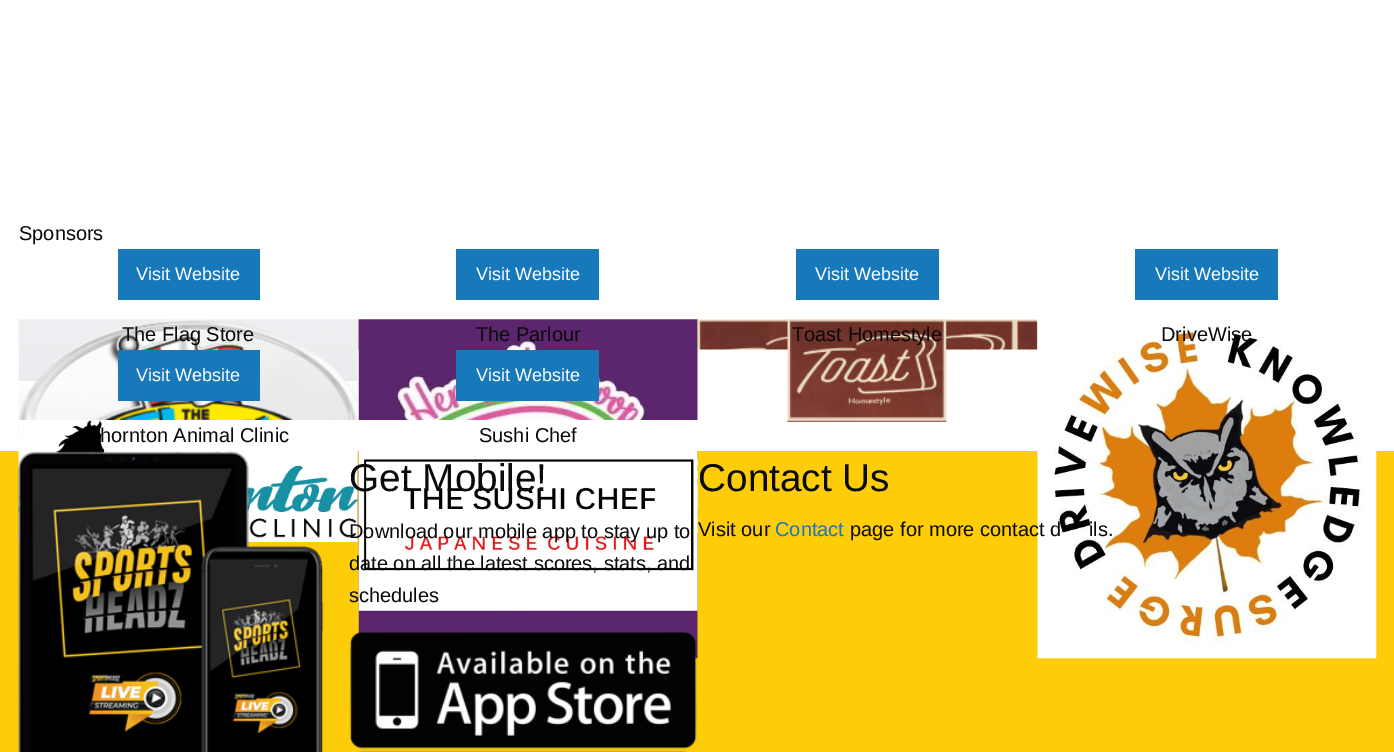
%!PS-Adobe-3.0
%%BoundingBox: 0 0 1394 752
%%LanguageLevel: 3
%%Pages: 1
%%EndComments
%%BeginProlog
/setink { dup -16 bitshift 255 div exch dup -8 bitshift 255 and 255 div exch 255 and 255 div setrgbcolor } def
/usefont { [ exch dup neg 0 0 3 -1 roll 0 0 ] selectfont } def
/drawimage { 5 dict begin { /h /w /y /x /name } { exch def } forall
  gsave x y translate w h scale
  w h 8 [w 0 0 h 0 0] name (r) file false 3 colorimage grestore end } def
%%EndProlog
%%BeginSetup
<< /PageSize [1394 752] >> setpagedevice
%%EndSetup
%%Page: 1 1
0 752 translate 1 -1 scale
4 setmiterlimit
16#FECD09 setink
0 0 1394 752 rectfill
16#FFFFFF setink
0 0 1394 451 rectfill
/LiberationSans-Regular 20 usefont
16#0A0A0A setink
19 240 moveto (Sponsors) show
16#1779BA setink
118 249 142 51 rectfill
/LiberationSans-Regular 18 usefont
16#FEFEFE setink
136 280 moveto (Visit Website) show
(img1.raw) 18 319 341 31 drawimage
(img2.raw) 18 319 340 221 drawimage
/LiberationSans-Regular 20 usefont
16#0A0A0A setink
122 341 moveto (The Flag Store) show
16#1779BA setink
456 249 143 51 rectfill
/LiberationSans-Regular 18 usefont
16#FEFEFE setink
476 280 moveto (Visit Website) show
(img3.raw) 358 319 340 31 drawimage
(img4.raw) 358 319 340 340 drawimage
/LiberationSans-Regular 20 usefont
16#0A0A0A setink
476 341 moveto (The Parlour) show
16#1779BA setink
796 249 143 51 rectfill
/LiberationSans-Regular 18 usefont
16#FEFEFE setink
815 280 moveto (Visit Website) show
(img5.raw) 697 319 341 31 drawimage
(img6.raw) 787 319 160 103 drawimage
/LiberationSans-Regular 20 usefont
16#0A0A0A setink
792 341 moveto (Toast Homestyle) show
16#1779BA setink
1135 249 143 51 rectfill
/LiberationSans-Regular 18 usefont
16#FEFEFE setink
1155 280 moveto (Visit Website) show
(img7.raw) 1037 319 300 31 drawimage
(img8.raw) 1037 320 340 339 drawimage
/LiberationSans-Regular 20 usefont
16#0A0A0A setink
1161 341 moveto (DriveWise) show
16#1779BA setink
118 350 142 51 rectfill
/LiberationSans-Regular 18 usefont
16#FEFEFE setink
136 381 moveto (Visit Website) show
16#FFFFFF setink
19 420 679 31 rectfill
(img9.raw) 18 420 340 122 drawimage
/LiberationSans-Regular 20 usefont
16#0A0A0A setink
100 442 moveto (hornton Animal Clinic) show
16#1779BA setink
456 350 143 51 rectfill
/LiberationSans-Regular 18 usefont
16#FEFEFE setink
476 381 moveto (Visit Website) show
/LiberationSans-Regular 20 usefont
16#0A0A0A setink
479 442 moveto (Sushi Chef) show
(img10.raw) 358 451 340 160 drawimage
(img11.raw) 17 451 307 301 drawimage
/LiberationSans-Regular 38.75 usefont
349 491 moveto (Get Mobile!) show
/LiberationSans-Regular 20 usefont
[
    [(Download our mobile app to stay up to) 349 538]
    [(date on all the latest scores, stats, and) 349 570]
    [(schedules) 349 602]
] { aload pop moveto show } forall
(img12.raw) 349 631 348 118 drawimage
(img13.raw) 357 750 332 2 drawimage
/LiberationSans-Regular 38.75 usefont
698 491 moveto (Contact Us) show
/LiberationSans-Regular 20 usefont
698 536 moveto (Visit our) show
16#1779BA setink
775 536 moveto (Contact) show
16#0A0A0A setink
850 536 moveto (page for more contact d) show
1089 536 moveto (ils.) show
showpage
%%EOF
